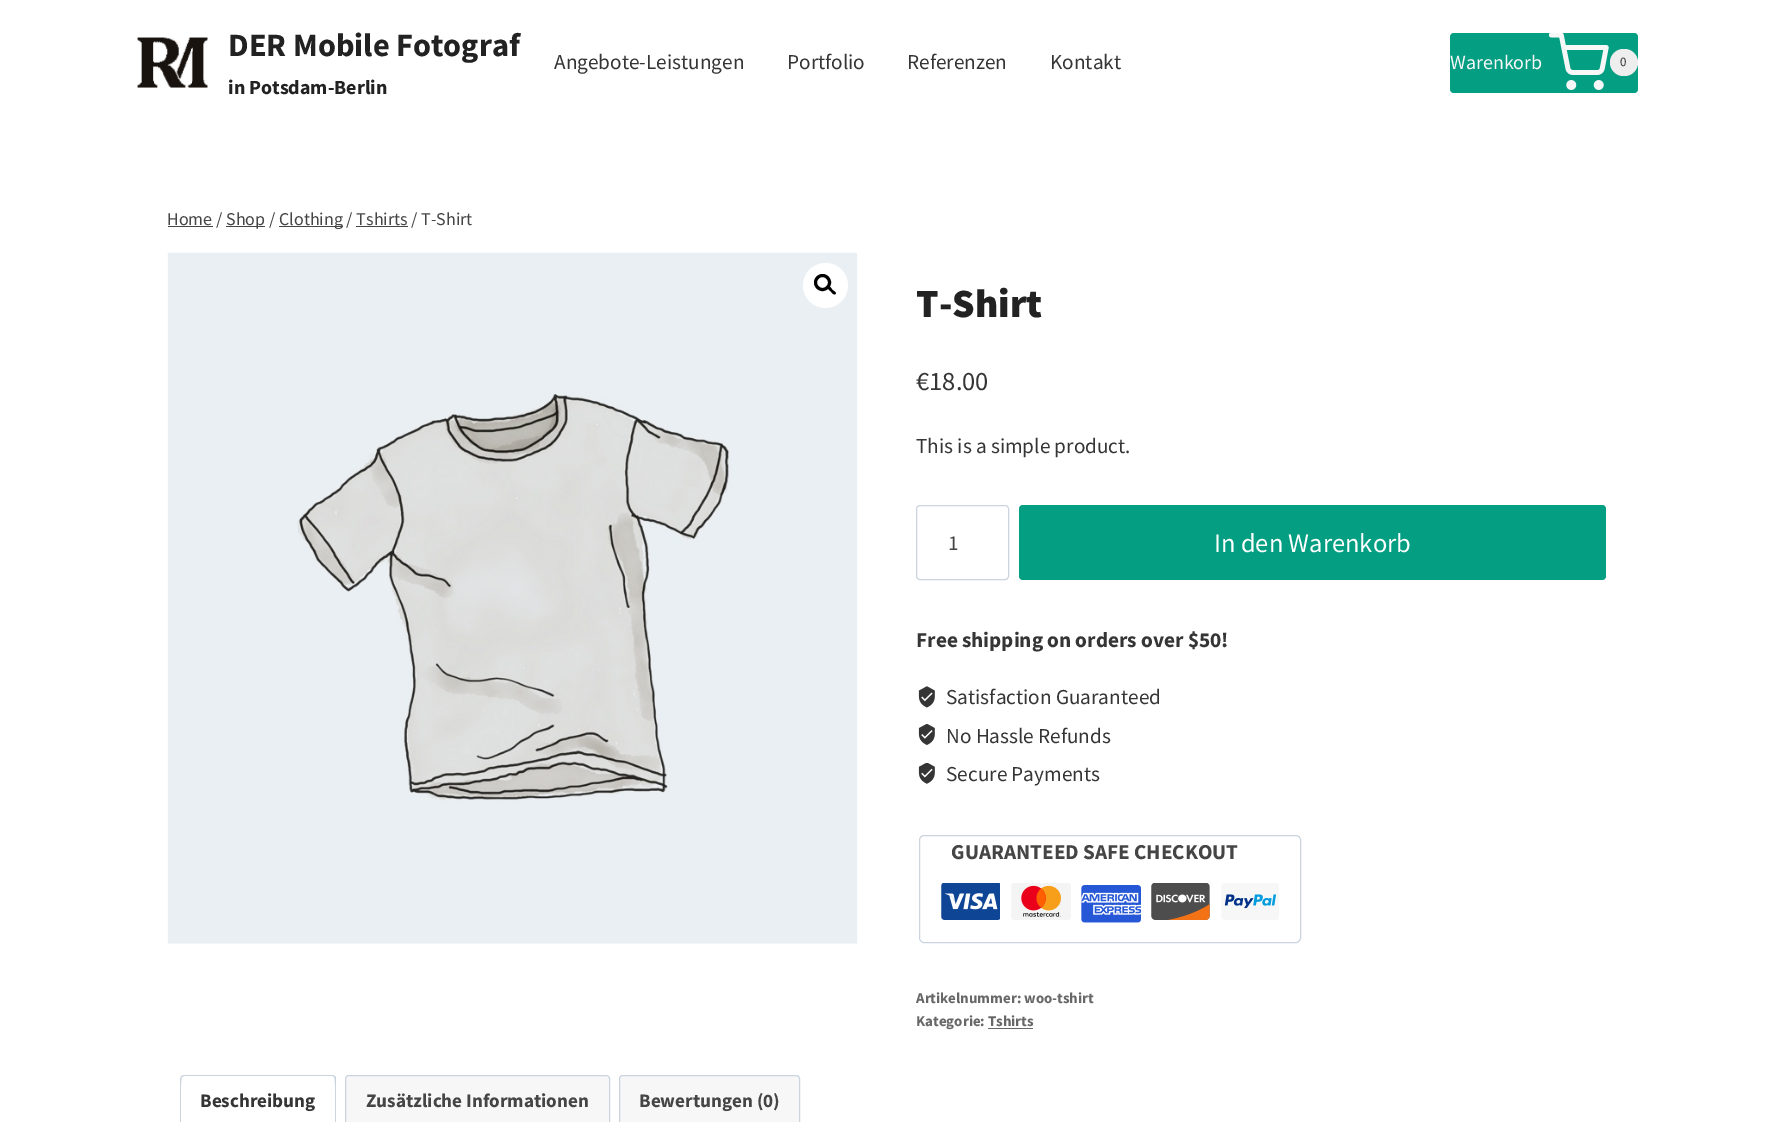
%!PS-Adobe-3.0
%%BoundingBox: 0 0 1773 1122
%%LanguageLevel: 3
%%Pages: 1
%%EndComments
%%BeginProlog
/setink { dup -16 bitshift 255 div exch dup -8 bitshift 255 and 255 div exch 255 and 255 div setrgbcolor } def
/usefont { [ exch dup neg 0 0 3 -1 roll 0 0 ] selectfont } def
/disc { newpath 0 360 arc closepath } def
/rrect { 5 dict begin { /r /h /w /y /x } { exch def } forall
  x r add y moveto x w add y 2 copy h add r arct x w add y h add x 1 index r arct
  x y h add x y r arct x y 2 copy exch w add exch r arct closepath end } def
/drawimage { 5 dict begin { /h /w /y /x /name } { exch def } forall
  gsave x y translate w h scale
  w h 8 [w 0 0 h 0 0] name (r) file false 3 colorimage grestore end } def
%%EndProlog
%%BeginSetup
<< /PageSize [1773 1122] >> setpagedevice
%%EndSetup
%%Page: 1 1
0 1122 translate 1 -1 scale
4 setmiterlimit
16#FFFFFF setink
0 0 1773 1122 rectfill
(img1.raw) 137 37 71 51 drawimage
/SourceSansPro-Bold 32.5 usefont
16#222222 setink
228 56 moveto (DER Mobile Fotograf) show
/SourceSansPro-Bold 20 usefont
228 94 moveto (in Potsdam-Berlin) show
/SourceSansPro-Regular 21.25 usefont
16#353535 setink
[
    [(Angebote-Leistungen) 554 69]
    [(Portfolio) 787 69]
    [(Referenzen) 907 69]
    [(Kontakt) 1050 69]
] { aload pop moveto show } forall
16#049F82 setink
1450 33 188 60 4 rrect fill
/SourceSansPro-Regular 20 usefont
16#F7F7F7 setink
1450 69 moveto (Warenkorb) show
(img2.raw) 1549 33 60 57 drawimage
16#EEEEEE setink
1610 49 28 27 13.5 rrect fill
/SourceSansPro-Regular 13 usefont
16#353535 setink
1620 66 moveto (0) show
16#454545 setink
168 226 45 1 rectfill
/SourceSansPro-Regular 18 usefont
167 225 moveto (Home /) show
226 226 39 1 rectfill
226 225 moveto (Shop /) show
279 226 64 1 rectfill
279 225 moveto (Clothing / Tshirts / T-Shirt) show
356 226 52 1 rectfill
(img3.raw) 167 252 691 692 drawimage
16#FFFFFF setink
825.5 285.5 22.5 disc fill
16#000000 setink
3 setlinewidth
822.5 282.5 7 disc stroke
828.5 287 moveto 829.5 285.5 832 289 832.5 290 curveto 833.5 290.5 837 293 835.5 294 curveto 834 295.5 831.5 292.5 831 291.5 curveto 830 291 827 288.5 828.5 287 curveto closepath fill
/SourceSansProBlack-Black 40 usefont
16#222222 setink
916 317 moveto (T-Shirt) show
/SourceSansPro-Regular 26.5 usefont
16#353535 setink
916 390 moveto (€18.00) show
/SourceSansPro-Regular 21.25 usefont
916 453 moveto (This is a simple product.) show
16#CBD5E0 setink
1 setlinewidth
916.5 505.5 92 74 3.5 rrect stroke
16#454545 setink
948 550 moveto (1) show
16#049F82 setink
1019 505 587 75 4 rrect fill
/SourceSansPro-Regular 26.5 usefont
16#FFFFFF setink
1214 552 moveto (In den Warenkorb) show
/SourceSansPro-Bold 21.25 usefont
16#353535 setink
916 647 moveto (Free shipping on orders over $50!) show
(img4.raw) 918 686 17 22 drawimage
/SourceSansPro-Regular 21.25 usefont
946 704 moveto (Satisfaction Guaranteed) show
(img5.raw) 918 724 17 21 drawimage
946 743 moveto (No Hassle Refunds) show
(img6.raw) 918 763 17 21 drawimage
946 781 moveto (Secure Payments) show
16#CBD5E0 setink
919.5 835.5 381 107 4.5 rrect stroke
/SourceSansPro-Bold 21.25 usefont
16#454545 setink
951 859 moveto (GUARANTEED SAFE CHECKOUT) show
(img7.raw) 941 883 59 37 drawimage
(img8.raw) 1011 883 60 37 drawimage
(img9.raw) 1081 885 60 38 drawimage
(img10.raw) 1151 883 59 37 drawimage
(img11.raw) 1221 883 58 37 drawimage
/SourceSansPro-Bold 14.9 usefont
16#676767 setink
916 1003 moveto (Artikelnummer: woo-tshirt) show
916 1026 moveto (Kategorie: Tshirts) show
988 1028 45 1 rectfill
16#CBD5E0 setink
184 1075 moveto 181 1076 lineto 182 1077 lineto 184 1076 lineto 332 1076 lineto 333 1076 334 1076 334 1077 curveto 335 1076 lineto 334 1075 333 1075 332 1075 curveto closepath fill
335 1076 moveto 336 1077 336 1078 336 1079 curveto 336 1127 lineto 335 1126 lineto 335 1120 336 1079 334 1077 curveto closepath fill
180 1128 moveto 182 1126 lineto 181 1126 lineto 181 1120 180 1079 182 1077 curveto 181 1076 lineto 180 1079 lineto closepath fill
/SourceSansPro-Bold 19.1 usefont
16#353535 setink
200 1107 moveto (Beschreibung) show
16#F7F7F7 setink
349 1075.5 moveto 606 1075.5 lineto 608 1075.5 609.5 1077 609.5 1079 curveto 609.5 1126.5 lineto 345.5 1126.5 lineto 345.5 1079 lineto 345.5 1077 347 1075.5 349 1075.5 curveto closepath gsave fill grestore
16#CBD5E0 setink
stroke
16#454545 setink
366 1107 moveto (Zusätzliche Informationen) show
16#F7F7F7 setink
623 1075.5 moveto 796 1075.5 lineto 798 1075.5 799.5 1077 799.5 1079 curveto 799.5 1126.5 lineto 619.5 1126.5 lineto 619.5 1079 lineto 619.5 1077 621 1075.5 623 1075.5 curveto closepath gsave fill grestore
16#CBD5E0 setink
stroke
16#454545 setink
639 1107 moveto (Bewertungen \(0\)) show
showpage
%%EOF
